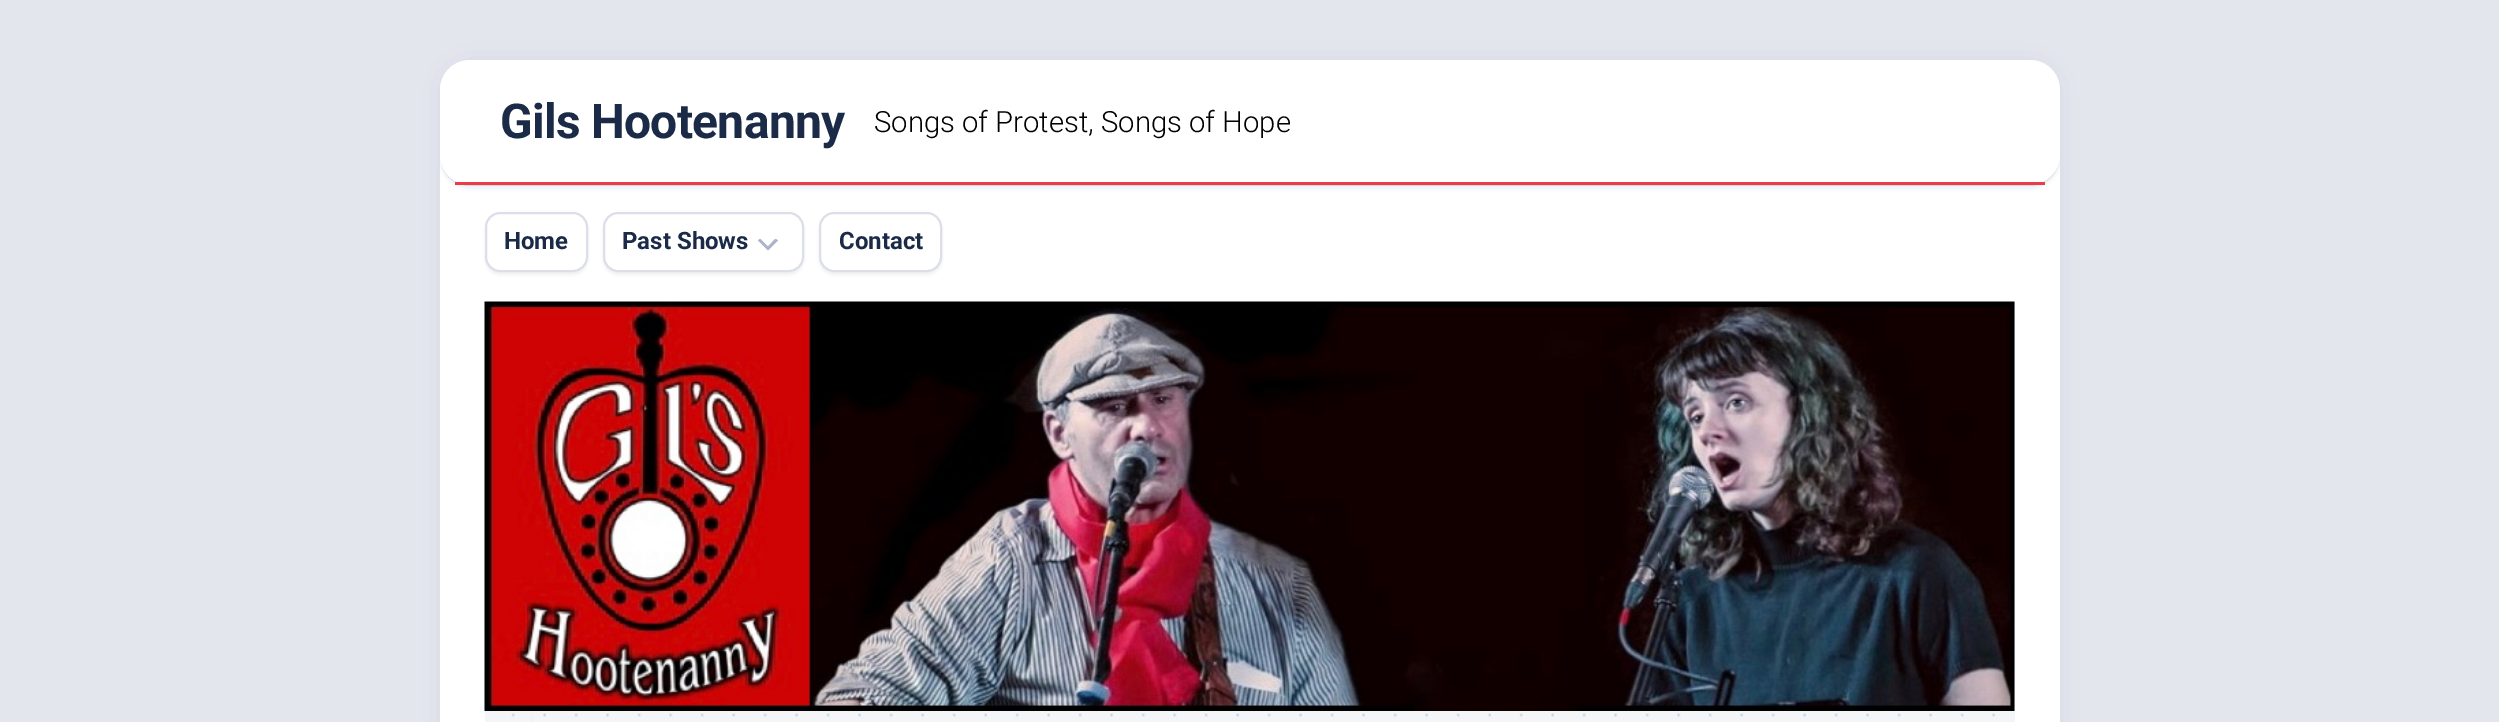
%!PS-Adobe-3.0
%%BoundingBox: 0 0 2499 722
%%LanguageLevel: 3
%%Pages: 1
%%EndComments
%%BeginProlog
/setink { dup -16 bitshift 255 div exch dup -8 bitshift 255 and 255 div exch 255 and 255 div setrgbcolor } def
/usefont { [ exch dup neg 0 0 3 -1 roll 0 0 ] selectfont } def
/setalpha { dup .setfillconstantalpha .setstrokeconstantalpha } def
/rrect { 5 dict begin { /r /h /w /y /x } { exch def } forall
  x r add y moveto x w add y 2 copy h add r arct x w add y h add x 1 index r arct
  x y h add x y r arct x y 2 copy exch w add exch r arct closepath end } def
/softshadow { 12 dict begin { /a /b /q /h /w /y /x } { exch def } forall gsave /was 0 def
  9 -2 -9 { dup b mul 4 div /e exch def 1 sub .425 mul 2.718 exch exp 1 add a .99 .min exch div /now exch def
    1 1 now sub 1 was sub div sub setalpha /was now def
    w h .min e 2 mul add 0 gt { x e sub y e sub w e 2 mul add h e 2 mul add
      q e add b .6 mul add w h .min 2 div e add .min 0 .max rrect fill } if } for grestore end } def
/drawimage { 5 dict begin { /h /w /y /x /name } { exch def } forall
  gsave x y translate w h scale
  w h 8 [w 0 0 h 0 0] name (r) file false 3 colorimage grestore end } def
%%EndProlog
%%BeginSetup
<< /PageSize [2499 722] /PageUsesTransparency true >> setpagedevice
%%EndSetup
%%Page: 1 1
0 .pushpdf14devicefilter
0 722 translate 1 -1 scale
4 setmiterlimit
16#E4E6ED setink
0 0 2499 722 rectfill
16#D6DAE4 setink
440 60 1620 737 30 15 1 softshadow
16#FFFFFF setink
440 60 1620 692 30 rrect fill
gsave
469.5 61.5 moveto 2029.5 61.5 lineto 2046 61.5 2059.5 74.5 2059.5 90 curveto 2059.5 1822.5 lineto 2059.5 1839 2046 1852.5 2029.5 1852.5 curveto 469.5 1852.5 lineto 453 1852.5 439.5 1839 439.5 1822.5 curveto 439.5 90 lineto 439.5 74.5 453 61.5 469.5 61.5 curveto closepath clip newpath
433 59 moveto 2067 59 lineto 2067 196 lineto 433 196 lineto closepath 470 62 moveto 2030 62 lineto 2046.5 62 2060 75.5 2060 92 curveto 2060 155 lineto 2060 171.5 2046.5 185 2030 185 curveto 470 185 lineto 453.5 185 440 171.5 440 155 curveto 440 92 lineto 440 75.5 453.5 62 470 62 curveto closepath eoclip newpath
16#C1CBE6 setink
440 66 1620 123 30 2 0.3 softshadow
grestore
0.1 setalpha
16#000000 setink
441 165 moveto 445 177 456 186 470 186 curveto 2030 186 lineto 2045 186 2057 175 2060 161 curveto 2060 154 lineto 2060 171 2046 184 2030 184 curveto 470 184 lineto 457 184 445 176 441 165 curveto closepath 2060 92 moveto 2060 88 2059 86 2058 83 curveto closepath eofill
0.9 setalpha
16#FFFFFF setink
470 62 moveto 2030 62 lineto 2043 62 2054 70 2058 82 curveto 2059 85 2060 87 2060 90 curveto 2060 160 lineto 2057 174 2045 185 2030 185 curveto 470 185 lineto 453 185 440 172 440 155 curveto 440 92 lineto 440 75 453 62 470 62 curveto closepath fill
1 setalpha
16#EB3B48 setink
455 182 1590 3 rectfill
/Roboto-Bold 48 usefont
16#1B2B47 setink
500 138 moveto -0.75 0 (Gils Hootenanny) ashow
/Roboto-Light 29.25 usefont
16#000000 setink
874 132 moveto (Songs of Protest, Songs of Hope) show
gsave
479 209 moveto 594 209 lineto 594 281 lineto 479 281 lineto closepath 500 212 moveto 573 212 lineto 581.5 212 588 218.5 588 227 curveto 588 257 lineto 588 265.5 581.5 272 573 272 curveto 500 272 lineto 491.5 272 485 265.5 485 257 curveto 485 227 lineto 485 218.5 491.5 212 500 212 curveto closepath eoclip newpath
485 215 103 60 15 1.5 0.06 softshadow
grestore
16#DCDFEA setink
2 setlinewidth
486 213 101 58 14 rrect stroke
/Roboto-Bold 24 usefont
16#1B2B47 setink
504 249 moveto (Home) show
gsave
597 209 moveto 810 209 lineto 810 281 lineto 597 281 lineto closepath 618 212 moveto 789 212 lineto 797.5 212 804 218.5 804 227 curveto 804 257 lineto 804 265.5 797.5 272 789 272 curveto 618 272 lineto 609.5 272 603 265.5 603 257 curveto 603 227 lineto 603 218.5 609.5 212 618 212 curveto closepath eoclip newpath
16#000000 setink
603 215 201 60 15 1.5 0.06 softshadow
grestore
16#DCDFEA setink
604 213 199 58 14 rrect stroke
16#1B2B47 setink
622 249 moveto (Past Shows) show
gsave
758 239 21 12 rectclip
16#AEB3C7 setink
768 246.5 moveto 775.5 238.5 lineto 778 240.5 lineto 768 250.5 lineto 758 240.5 lineto 760 238.5 lineto closepath eofill
grestore
gsave
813 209 moveto 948 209 lineto 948 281 lineto 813 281 lineto closepath 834 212 moveto 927 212 lineto 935.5 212 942 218.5 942 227 curveto 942 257 lineto 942 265.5 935.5 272 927 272 curveto 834 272 lineto 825.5 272 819 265.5 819 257 curveto 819 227 lineto 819 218.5 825.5 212 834 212 curveto closepath eoclip newpath
16#000000 setink
819 215 123 60 15 1.5 0.06 softshadow
grestore
16#DCDFEA setink
820 213 121 58 14 rrect stroke
16#1B2B47 setink
839 249 moveto (Contact) show
16#F4F5F8 setink
485 711 1530 11 rectfill
(img1.raw) 489 711 1507 6 drawimage
16#E4E6ED setink
2014 302 1 409 rectfill
(img2.raw) 484 301 1531 410 drawimage
gsave 530 711 moveto 533 711 lineto 533 722 lineto 530 722 lineto closepath clip newpath
<< /ShadingType 2 /ColorSpace /DeviceRGB /Coords [531 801 531 711] /Extend [true true] /Function << /FunctionType 2 /Domain [0 1] /C0 [0.847 0.859 0.898] /C1 [0.957 0.961 0.973] /N 1 >> >> shfill grestore
.poppdf14devicefilter showpage
%%EOF
